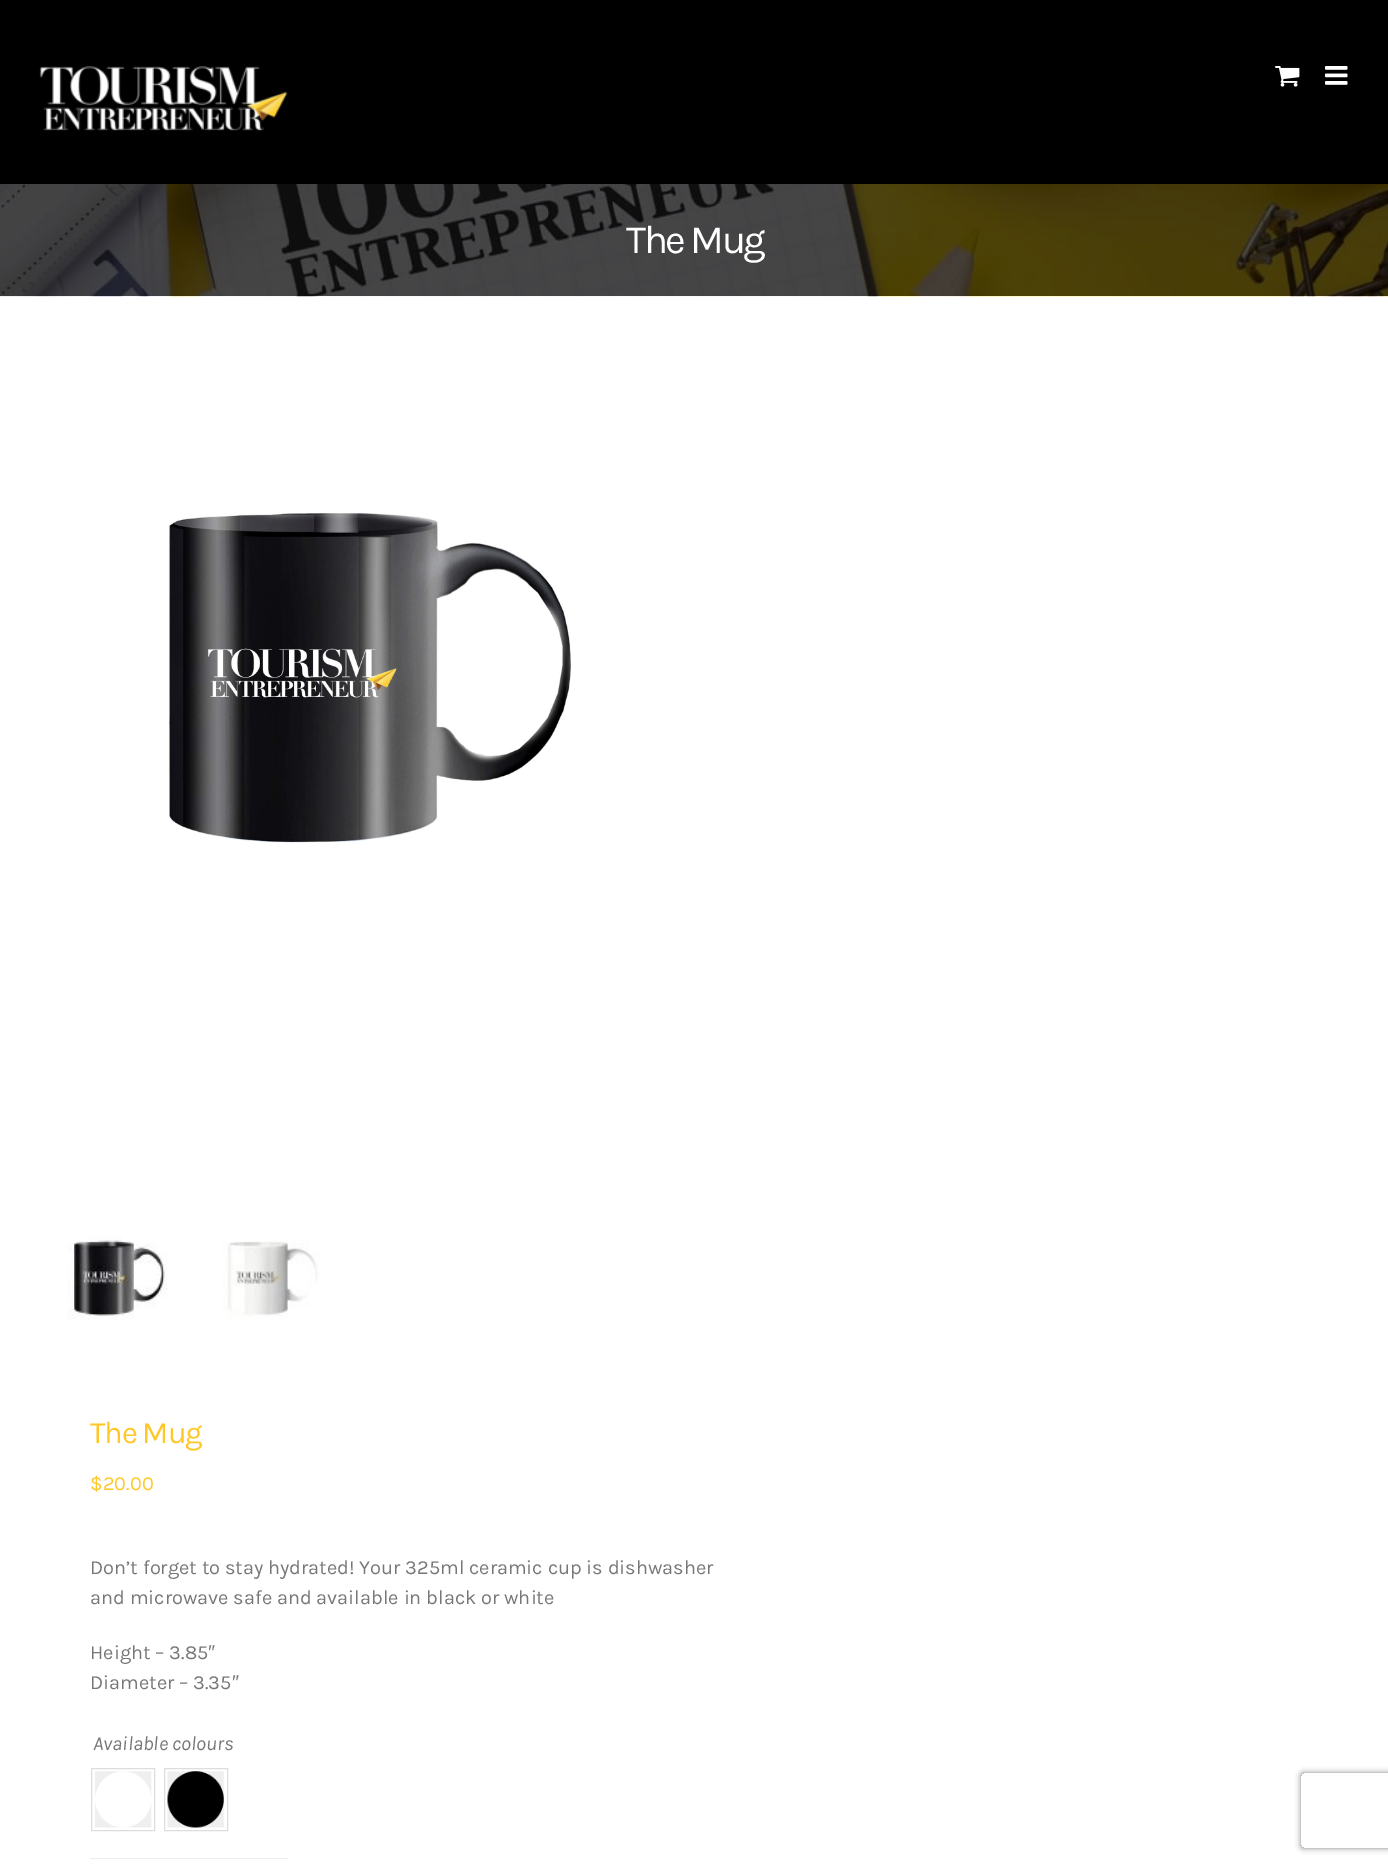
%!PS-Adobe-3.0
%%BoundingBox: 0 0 1388 1864
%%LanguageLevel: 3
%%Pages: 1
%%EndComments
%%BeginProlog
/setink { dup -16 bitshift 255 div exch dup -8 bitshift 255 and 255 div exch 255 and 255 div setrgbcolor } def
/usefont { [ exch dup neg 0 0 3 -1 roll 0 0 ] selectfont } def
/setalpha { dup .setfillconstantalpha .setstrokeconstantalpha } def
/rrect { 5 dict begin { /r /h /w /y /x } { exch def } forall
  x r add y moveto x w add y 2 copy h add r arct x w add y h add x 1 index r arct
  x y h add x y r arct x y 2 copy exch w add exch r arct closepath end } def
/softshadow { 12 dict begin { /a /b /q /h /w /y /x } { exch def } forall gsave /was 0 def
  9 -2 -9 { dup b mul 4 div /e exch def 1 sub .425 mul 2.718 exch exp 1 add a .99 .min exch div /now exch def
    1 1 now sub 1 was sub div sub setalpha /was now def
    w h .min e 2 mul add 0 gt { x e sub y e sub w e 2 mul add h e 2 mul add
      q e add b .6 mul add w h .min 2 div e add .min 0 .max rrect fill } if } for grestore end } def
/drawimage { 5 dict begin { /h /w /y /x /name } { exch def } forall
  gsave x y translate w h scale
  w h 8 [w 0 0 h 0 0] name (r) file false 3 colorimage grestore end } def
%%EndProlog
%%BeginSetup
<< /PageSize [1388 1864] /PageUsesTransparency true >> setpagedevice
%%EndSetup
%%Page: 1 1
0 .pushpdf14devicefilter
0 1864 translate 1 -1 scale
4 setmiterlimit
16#FFFFFF setink
0 0 1388 1864 rectfill
16#000000 setink
0 0 1388 184 rectfill
(img1.raw) 39 66 249 65 drawimage
(img2.raw) 1275 66 25 21 drawimage
(img3.raw) 1325 66 23 19 drawimage
(img4.raw) 0 184 1388 113 drawimage
/Karla-Regular 40 usefont
16#FFFFFF setink
626 253 moveto -2.5 0 (The Mug) ashow
(img5.raw) 168 513 403 330 drawimage
(img6.raw) 67 1237 101 83 drawimage
(img7.raw) 221 1241 100 77 drawimage
/Karla-Regular 31 usefont
16#FFC727 setink
90 1443 moveto -1.25 0 (The Mug) ashow
/Karla-Regular 20 usefont
90 1490 moveto ($20.00) show
16#777777 setink
[
    [(Don’t forget to stay hydrated! Your 325ml ceramic cup is dishwasher) 90 1574]
    [(and microwave safe and available in black or white) 90 1604]
    [(Height – 3.85) 90 1659]
] { aload pop moveto show } forall
/LiberationSans-Regular 20 usefont
208 1659 moveto (″) show
/Karla-Regular 20 usefont
90 1689 moveto (Diameter – 3.35) show
/LiberationSans-Regular 20 usefont
232 1689 moveto (″) show
/Karla-Italic 20 usefont
93 1750 moveto (Available colours) show
(img8.raw) 95 1771 57 57 drawimage
16#DDDDDD setink
91.5 1768.5 63 62 rectstroke
(img9.raw) 167 1771 57 57 drawimage
164.5 1768.5 63 62 rectstroke
16#EEEEEE setink
90 1858 198 1 rectfill
gsave
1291 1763 moveto 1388 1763 lineto 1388 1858 lineto 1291 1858 lineto closepath 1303.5 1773 moveto 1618.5 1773 lineto 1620 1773 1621 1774 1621 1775.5 curveto 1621 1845.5 lineto 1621 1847 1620 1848 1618.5 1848 curveto 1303.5 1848 lineto 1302 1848 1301 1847 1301 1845.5 curveto 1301 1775.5 lineto 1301 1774 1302 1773 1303.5 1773 curveto closepath eoclip newpath
16#808080 setink
1301 1773 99 75 2.5 3 1 softshadow
grestore
.poppdf14devicefilter showpage
%%EOF
